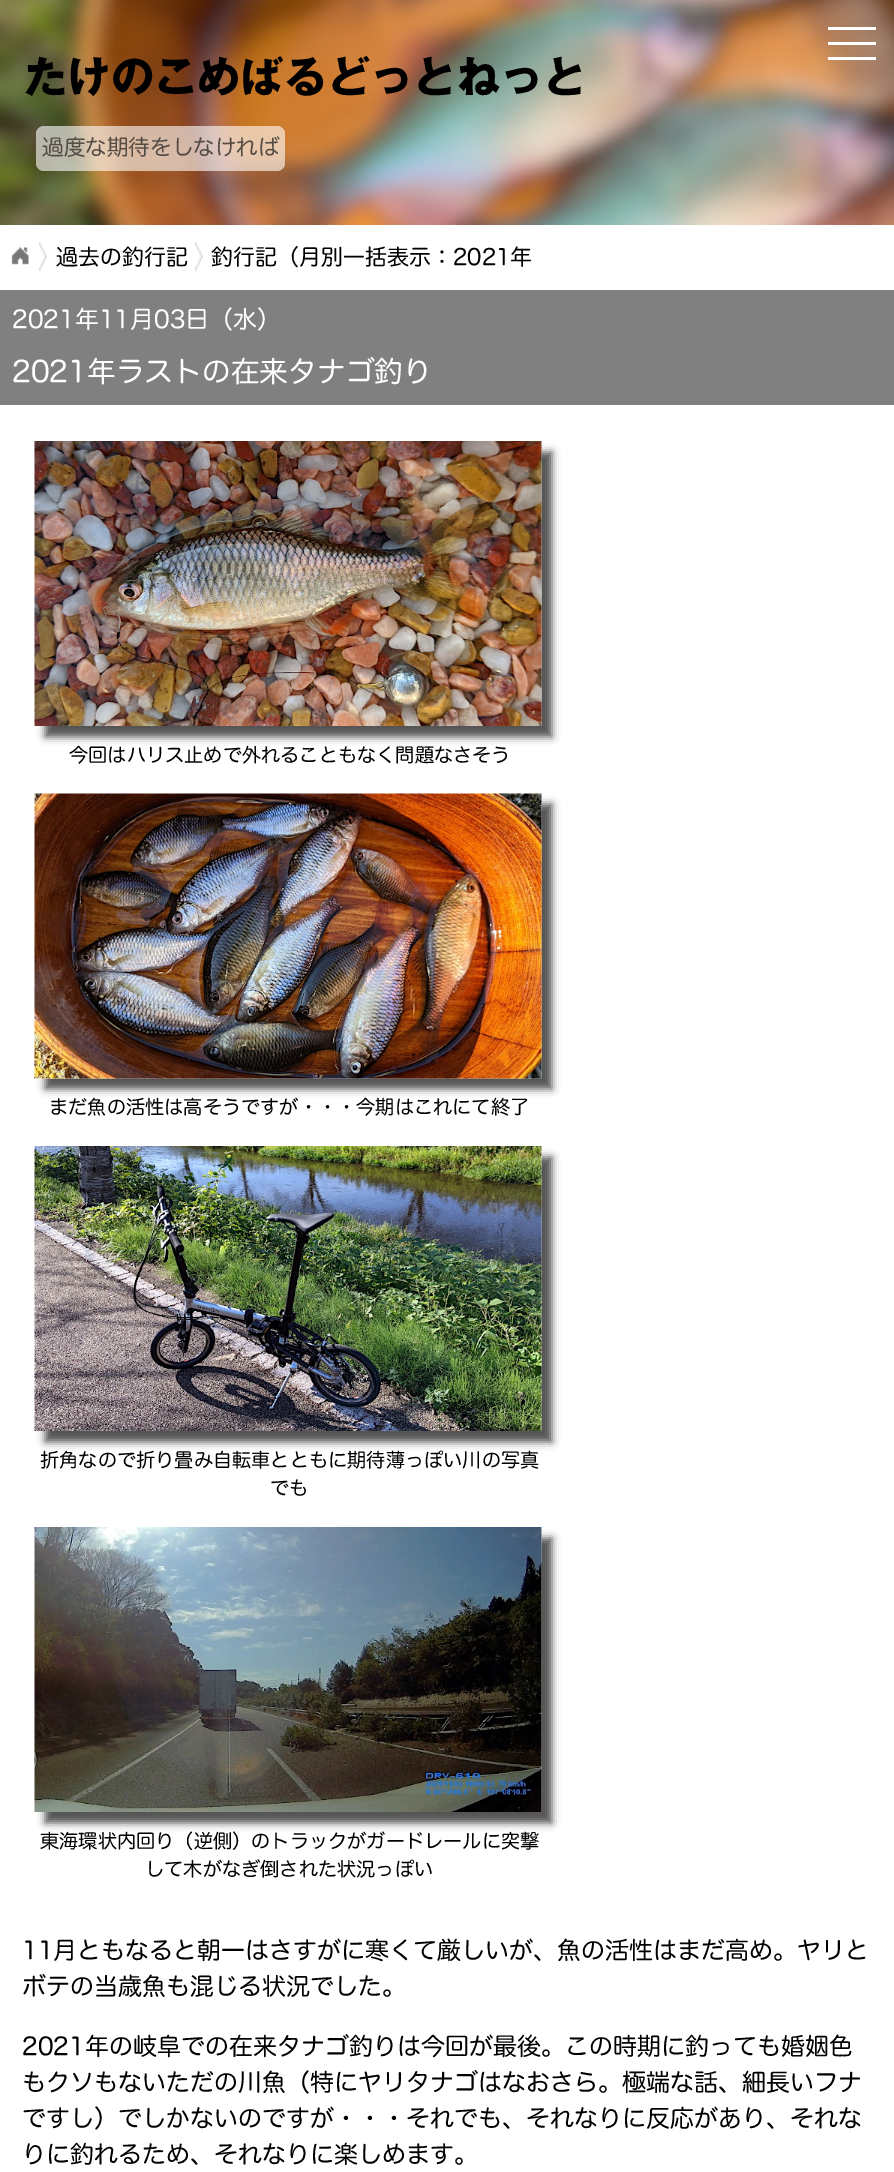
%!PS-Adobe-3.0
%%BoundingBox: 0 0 894 2172
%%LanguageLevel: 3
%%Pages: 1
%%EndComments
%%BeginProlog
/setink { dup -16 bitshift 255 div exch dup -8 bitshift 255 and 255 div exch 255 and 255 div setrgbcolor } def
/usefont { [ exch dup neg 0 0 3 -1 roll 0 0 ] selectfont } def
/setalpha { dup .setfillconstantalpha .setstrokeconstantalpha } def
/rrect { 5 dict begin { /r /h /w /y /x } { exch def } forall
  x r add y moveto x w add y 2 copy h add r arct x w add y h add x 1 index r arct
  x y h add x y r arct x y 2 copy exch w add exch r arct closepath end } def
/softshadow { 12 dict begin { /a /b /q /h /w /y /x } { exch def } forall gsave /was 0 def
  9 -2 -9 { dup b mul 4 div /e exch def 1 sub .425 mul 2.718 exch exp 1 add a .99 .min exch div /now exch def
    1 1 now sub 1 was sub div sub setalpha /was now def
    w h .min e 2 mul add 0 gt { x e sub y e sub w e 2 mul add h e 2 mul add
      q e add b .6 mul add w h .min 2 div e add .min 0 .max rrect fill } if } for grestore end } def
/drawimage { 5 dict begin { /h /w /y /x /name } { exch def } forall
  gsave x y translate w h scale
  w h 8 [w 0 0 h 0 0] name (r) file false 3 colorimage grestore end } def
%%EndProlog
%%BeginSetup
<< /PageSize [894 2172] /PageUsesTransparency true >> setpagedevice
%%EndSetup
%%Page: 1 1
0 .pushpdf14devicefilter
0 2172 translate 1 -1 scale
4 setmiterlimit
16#FFFFFF setink
0 0 894 2172 rectfill
(img1.raw) 0 0 894 225 drawimage
[
    [828 42 48 3 16#FFFFFF]
    [828 27 48 3 16#FFFFFF]
    [828 57 48 3 16#FFFFFF]
] { aload pop setink rectfill } forall
/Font-Bold 43.25 usefont
16#000000 setink
24 93 moveto (たけのこめばるどっとねっと) show
0.6 setalpha
16#FFFFFF setink
36 126 249 45 8 rrect fill
/Font-Regular 21.6 usefont
1 setalpha
16#554D45 setink
42 155 moveto (過度な期待をしなければ) show
(img2.raw) 39 241 8 31 drawimage
(img3.raw) 11 247 18 18 drawimage
(img2.raw) 195 241 8 31 drawimage
/Font-Regular 22 usefont
16#000000 setink
56 265 moveto (過去の釣行記) show
211 265 moveto (釣行記（月別一括表示：2021年) show
16#808080 setink
0 290 894 115 rectfill
/Font-Regular 24 usefont
16#FFFFFF setink
12 328 moveto (2021年11月03日（水）) show
/Font-Regular 28.75 usefont
12 382 moveto (2021年ラストの在来タナゴ釣り) show
16#505050 setink
45 452 507 285 0 4 1 softshadow
(img4.raw) 34 441 508 285 drawimage
/Font-Regular 19.2 usefont
16#000000 setink
69 762 moveto (今回はハリス止めで外れることもなく問題なさそう) show
16#505050 setink
45 804 507 285 0 4 1 softshadow
(img5.raw) 34 793 508 286 drawimage
16#000000 setink
49 1114 moveto (まだ魚の活性は高そうですが・・・今期はこれにて終了) show
16#505050 setink
45 1157 507 285 0 4 1 softshadow
(img6.raw) 34 1146 508 285 drawimage
16#000000 setink
40 1467 moveto (折角なので折り畳み自転車とともに期待薄っぽい川の写真) show
270 1495 moveto (でも) show
16#505050 setink
45 1538 507 285 0 4 1 softshadow
(img7.raw) 34 1527 508 285 drawimage
16#000000 setink
40 1848 moveto (東海環状内回り（逆側）のトラックがガードレールに突撃) show
145 1876 moveto (して木がなぎ倒された状況っぽい) show
/Font-Regular 24 usefont
[
    [(11月ともなると朝一はさすがに寒くて厳しいが、魚の活性はまだ高め。ヤリと) 22 1959]
    [(ボテの当歳魚も混じる状況でした。) 22 1995]
    [(2021年の岐阜での在来タナゴ釣りは今回が最後。この時期に釣っても婚姻色) 22 2055]
    [(もクソもないただの川魚（特にヤリタナゴはなおさら。極端な話、細長いフナ) 22 2091]
    [(ですし）でしかないのですが・・・それでも、それなりに反応があり、それな) 22 2127]
    [(りに釣れるため、それなりに楽しめます。) 22 2163]
] { aload pop moveto show } forall
.poppdf14devicefilter showpage
%%EOF
